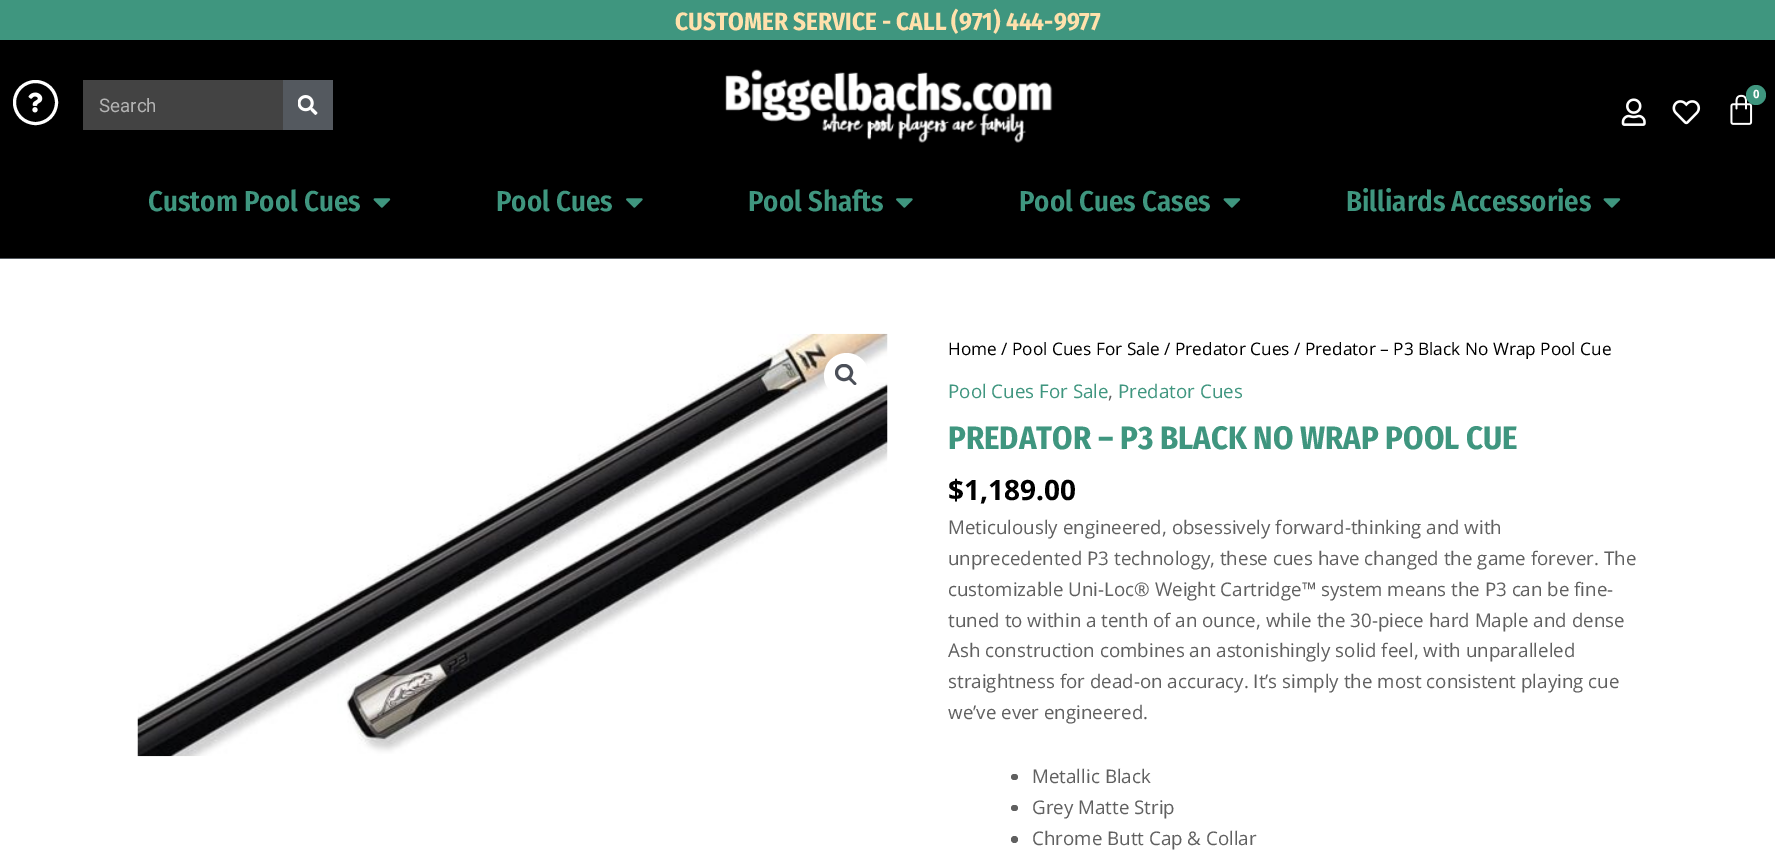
%!PS-Adobe-3.0
%%BoundingBox: 0 0 1775 862
%%LanguageLevel: 3
%%Pages: 1
%%EndComments
%%BeginProlog
/setink { dup -16 bitshift 255 div exch dup -8 bitshift 255 and 255 div exch 255 and 255 div setrgbcolor } def
/usefont { [ exch dup neg 0 0 3 -1 roll 0 0 ] selectfont } def
/disc { newpath 0 360 arc closepath } def
/rrect { 5 dict begin { /r /h /w /y /x } { exch def } forall
  x r add y moveto x w add y 2 copy h add r arct x w add y h add x 1 index r arct
  x y h add x y r arct x y 2 copy exch w add exch r arct closepath end } def
/drawimage { 5 dict begin { /h /w /y /x /name } { exch def } forall
  gsave x y translate w h scale
  w h 8 [w 0 0 h 0 0] name (r) file false 3 colorimage grestore end } def
%%EndProlog
%%BeginSetup
<< /PageSize [1775 862] >> setpagedevice
%%EndSetup
%%Page: 1 1
0 862 translate 1 -1 scale
4 setmiterlimit
16#FFFFFF setink
0 0 1775 862 rectfill
16#3F967F setink
0 0 1775 40 rectfill
/FiraSansCondensed-Bold 25 usefont
16#FFE1AC setink
675 30 moveto (CUSTOMER SERVICE - CALL \(971\) 444-9977) show
16#000000 setink
0 40 1775 218 rectfill
(img1.raw) 725 69 328 74 drawimage
(img2.raw) 1730 94 23 31 drawimage
16#3F967F setink
1756 95 10 disc fill
/FiraSansCondensed-Bold 12 usefont
16#FFFFFF setink
1753 98 moveto (0) show
(img3.raw) 1621 98 25 28 drawimage
(img4.raw) 1672 100 29 25 drawimage
3 setlinewidth
35.5 102.5 21 disc stroke
(img5.raw) 28 92 15 21 drawimage
16#434343 setink
83 80 200 50 rectfill
/Roboto-Regular 18.75 usefont
16#B4B4B4 setink
99 112 moveto (Search) show
16#54595F setink
283 80 50 50 rectfill
(img6.raw) 298 95 20 20 drawimage
0 258 1775 1 rectfill
/FiraSansCondensed-SemiBold 28.75 usefont
16#3F967F setink
148 211 moveto (Custom Pool Cues) show
(img7.raw) 373 198 18 10 drawimage
496 211 moveto (Pool Cues) show
(img8.raw) 626 198 17 10 drawimage
748 211 moveto (Pool Shafts) show
(img8.raw) 896 198 17 10 drawimage
1019 211 moveto (Pool Cues Cases) show
(img7.raw) 1223 198 18 10 drawimage
1346 211 moveto (Billiards Accessories) show
(img7.raw) 1603 198 18 10 drawimage
(img9.raw) 137 333 751 424 drawimage
16#FFFFFF setink
846.5 375.5 22.5 disc fill
16#4B4F58 setink
836.5 365.5 15 14 7 rrect stroke
849 377.5 moveto 850.5 376.5 852.5 379.5 853.5 380.5 curveto 854 381 857.5 383.5 856 384.5 curveto 854.5 386 852.5 383 851.5 382 curveto 851 381.5 847.5 379 849 377.5 curveto closepath fill
/OpenSans-Regular 17.25 usefont
16#000000 setink
948 355 moveto (Home / Pool Cues For Sale / Predator Cues / Predator – P3 Black No Wrap Pool Cue) show
/OpenSans-Regular 18.75 usefont
16#3F967F setink
948 398 moveto (Pool Cues For Sale) show
16#606060 setink
1108 398 moveto (,) show
16#3F967F setink
1118 398 moveto (Predator Cues) show
/FiraSansCondensed-Bold 32.5 usefont
948 449 moveto (PREDATOR – P3 BLACK NO WRAP POOL CUE) show
/OpenSans-Bold 28 usefont
16#000000 setink
948 500 moveto ($1,189.00) show
/OpenSans-Regular 18.75 usefont
16#606060 setink
[
    [(Meticulously engineered, obsessively forward-thinking and with) 948 534]
    [(unprecedented P3 technology, these cues have changed the game forever. The) 948 565]
    [(customizable Uni-Loc® Weight Cartridge™ system means the P3 can be fine-) 948 596]
    [(tuned to within a tenth of an ounce, while the 30-piece hard Maple and dense) 948 627]
    [(Ash construction combines an astonishingly solid feel, with unparalleled) 948 657]
    [(straightness for dead-on accuracy. It’s simply the most consistent playing cue) 948 688]
    [(we’ve ever engineered.) 948 719]
] { aload pop moveto show } forall
1011 774 7 6 3 rrect fill
1032 783 moveto (Metallic Black) show
1011 805 7 6 3 rrect fill
1032 814 moveto (Grey Matte Strip) show
1014.5 839.5 3.5 disc fill
1032 845 moveto (Chrome Butt Cap & Collar) show
showpage
%%EOF
